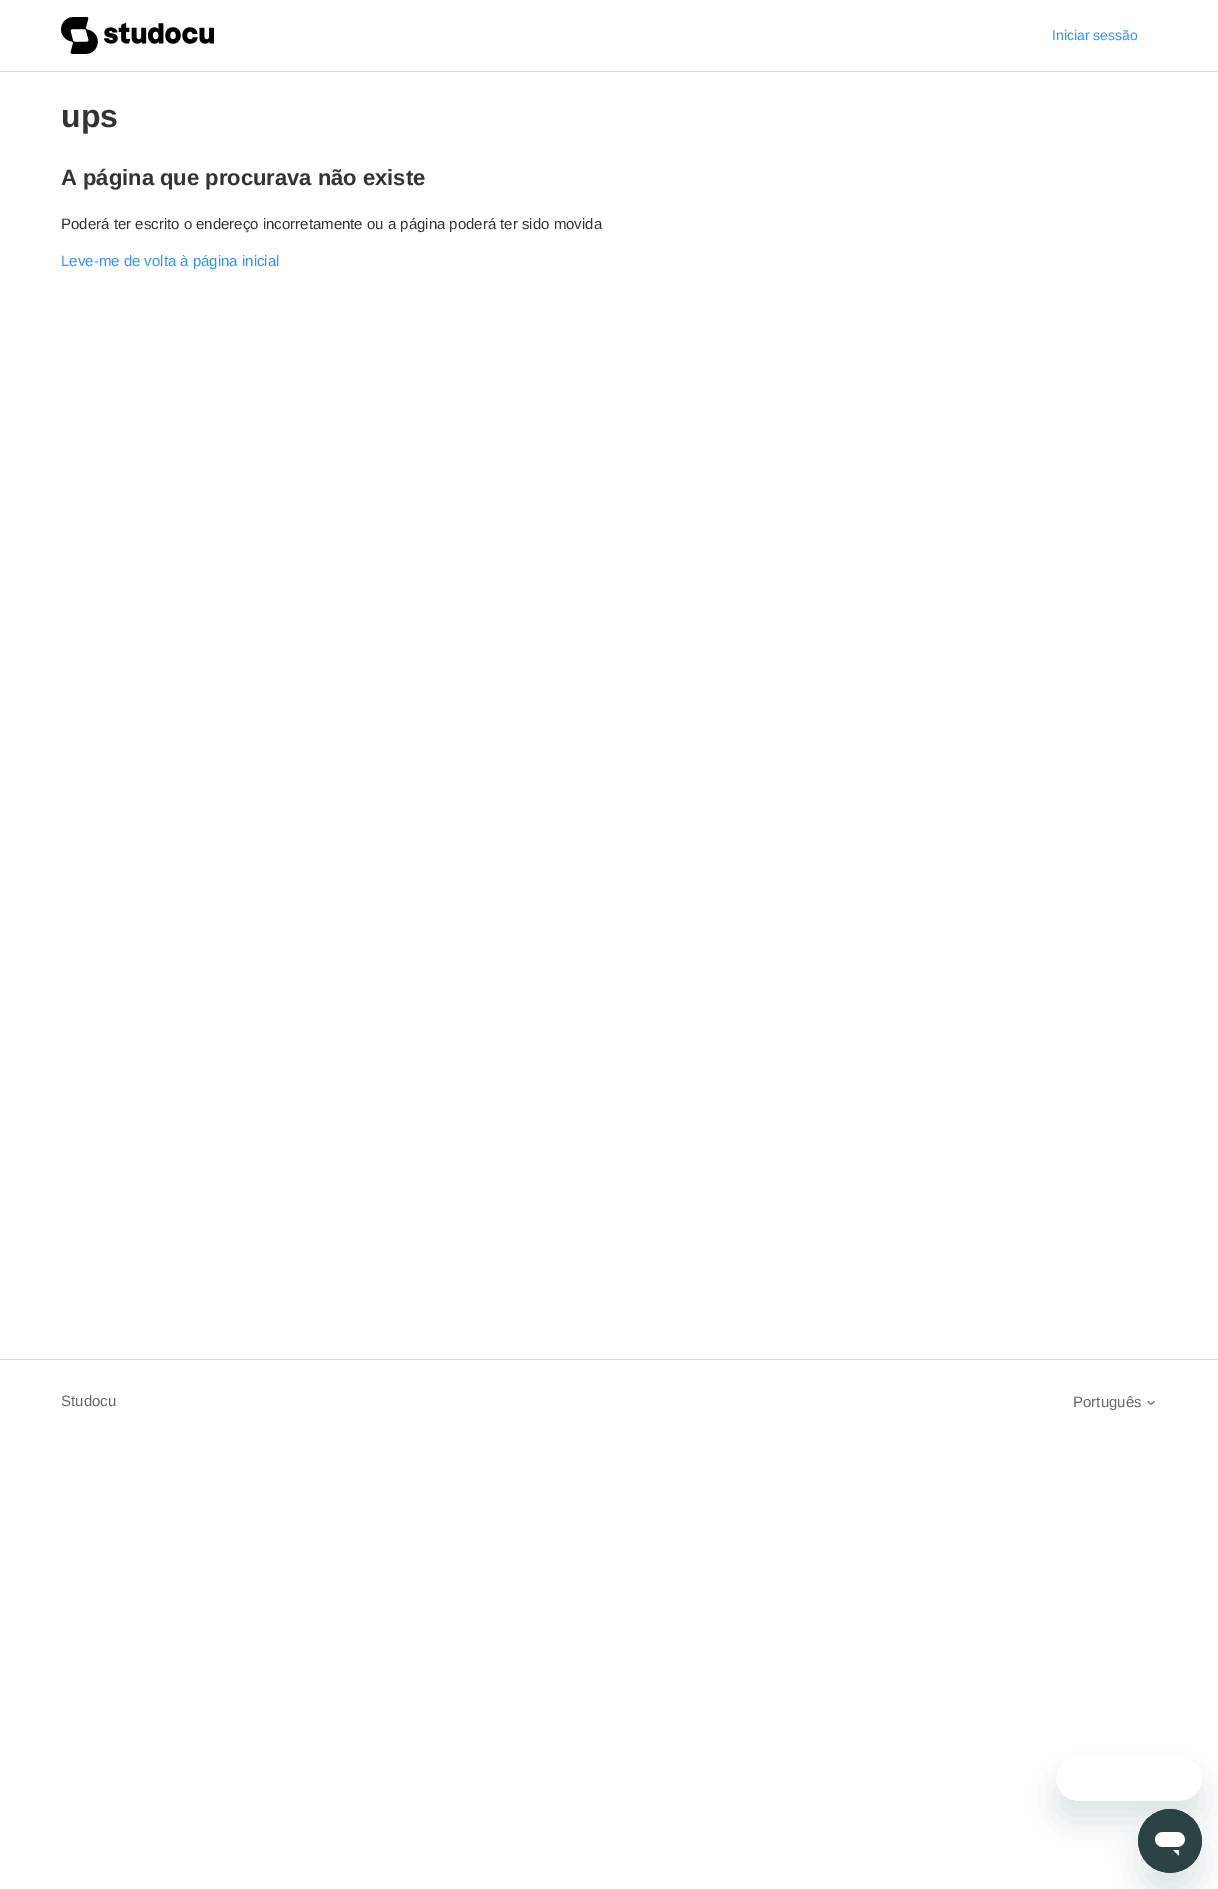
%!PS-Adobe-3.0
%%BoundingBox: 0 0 1218 1889
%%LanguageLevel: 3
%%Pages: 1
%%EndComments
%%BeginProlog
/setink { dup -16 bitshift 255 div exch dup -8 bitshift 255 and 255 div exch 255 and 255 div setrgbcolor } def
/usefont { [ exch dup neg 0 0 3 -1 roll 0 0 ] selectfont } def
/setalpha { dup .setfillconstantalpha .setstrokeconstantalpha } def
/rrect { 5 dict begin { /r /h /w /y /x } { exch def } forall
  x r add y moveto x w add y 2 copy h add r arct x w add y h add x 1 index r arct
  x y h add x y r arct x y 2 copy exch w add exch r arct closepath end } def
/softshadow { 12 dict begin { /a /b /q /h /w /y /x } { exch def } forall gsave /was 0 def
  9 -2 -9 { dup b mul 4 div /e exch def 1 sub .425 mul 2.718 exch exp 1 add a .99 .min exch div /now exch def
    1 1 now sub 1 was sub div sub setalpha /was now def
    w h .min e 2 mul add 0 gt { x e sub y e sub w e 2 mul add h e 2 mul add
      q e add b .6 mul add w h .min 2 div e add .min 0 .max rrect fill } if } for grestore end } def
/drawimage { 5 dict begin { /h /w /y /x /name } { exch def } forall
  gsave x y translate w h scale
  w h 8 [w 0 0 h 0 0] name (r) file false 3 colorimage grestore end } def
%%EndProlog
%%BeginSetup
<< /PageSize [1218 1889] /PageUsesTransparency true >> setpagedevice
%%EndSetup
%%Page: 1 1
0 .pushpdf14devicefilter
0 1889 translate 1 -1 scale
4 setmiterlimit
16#FFFFFF setink
0 0 1218 1889 rectfill
(img1.raw) 61 17 153 37 drawimage
/LiberationSans-Regular 14 usefont
16#3092FA setink
1052 40 moveto (Iniciar sessão) show
16#DDDDDD setink
0 71 1218 1 rectfill
/LiberationSans-Bold 32 usefont
16#333333 setink
61 127 moveto (ups) show
/LiberationSans-Bold 22 usefont
61 185 moveto (A página que procurava não existe) show
/LiberationSans-Regular 15 usefont
61 229 moveto (Poderá ter escrito o endereço incorretamente ou a página poderá ter sido movida) show
16#3092FA setink
61 266 moveto (Leve-me de volta à página inicial) show
16#DDDDDD setink
0 1359 1218 1 rectfill
16#666666 setink
61 1406 moveto (Studocu) show
1073 1407 moveto (Português) show
1 setlinecap
1148 1401.5 moveto 1151.5 1405 1150.5 1405 1154 1401.5 curveto stroke
gsave
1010 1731 moveto 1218 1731 lineto 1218 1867 lineto 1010 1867 lineto closepath 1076 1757 moveto 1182 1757 lineto 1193 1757 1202 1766 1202 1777 curveto 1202 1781 lineto 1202 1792 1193 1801 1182 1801 curveto 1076 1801 lineto 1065 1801 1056 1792 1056 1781 curveto 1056 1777 lineto 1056 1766 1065 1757 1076 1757 curveto closepath eoclip newpath
16#17494D setink
1056 1777 146 44 20 15 0.15 softshadow
grestore
16#17494D setink
1138 1829 64 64 32 15 0.15 softshadow
(img2.raw) 1138 1809 64 64 drawimage
.poppdf14devicefilter showpage
%%EOF
